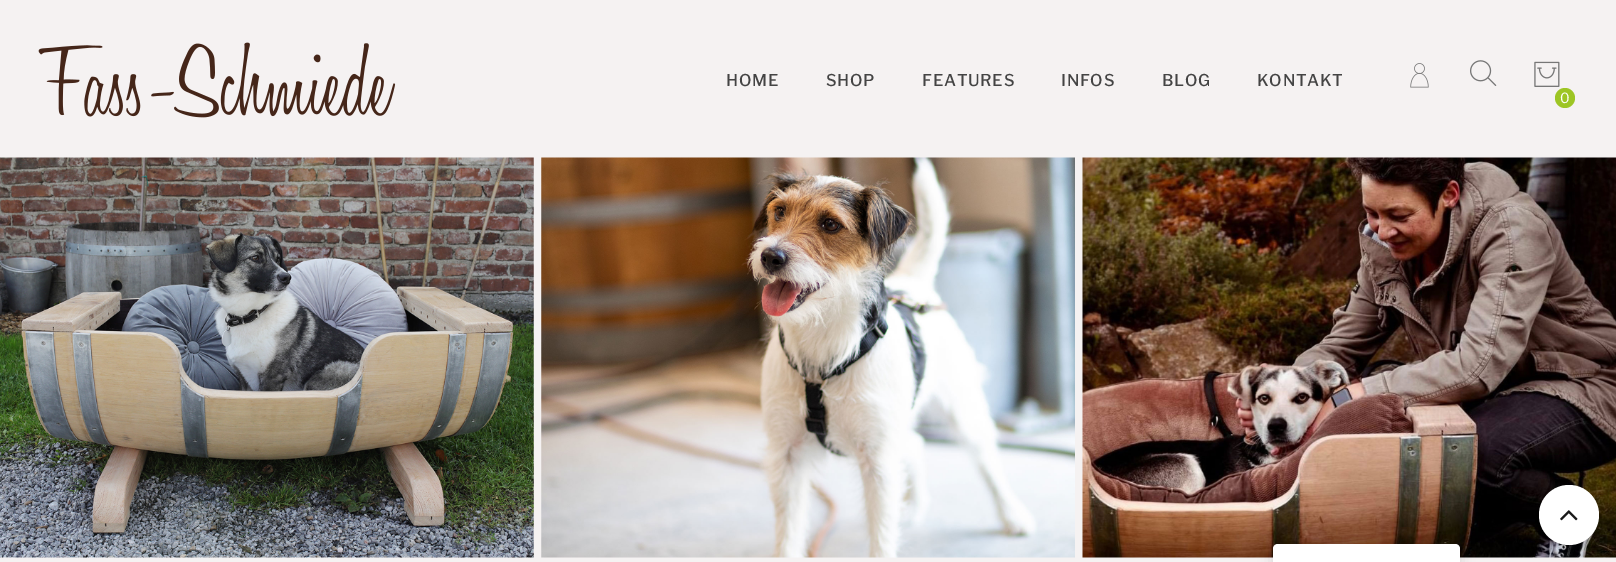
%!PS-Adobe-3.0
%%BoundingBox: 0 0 1616 562
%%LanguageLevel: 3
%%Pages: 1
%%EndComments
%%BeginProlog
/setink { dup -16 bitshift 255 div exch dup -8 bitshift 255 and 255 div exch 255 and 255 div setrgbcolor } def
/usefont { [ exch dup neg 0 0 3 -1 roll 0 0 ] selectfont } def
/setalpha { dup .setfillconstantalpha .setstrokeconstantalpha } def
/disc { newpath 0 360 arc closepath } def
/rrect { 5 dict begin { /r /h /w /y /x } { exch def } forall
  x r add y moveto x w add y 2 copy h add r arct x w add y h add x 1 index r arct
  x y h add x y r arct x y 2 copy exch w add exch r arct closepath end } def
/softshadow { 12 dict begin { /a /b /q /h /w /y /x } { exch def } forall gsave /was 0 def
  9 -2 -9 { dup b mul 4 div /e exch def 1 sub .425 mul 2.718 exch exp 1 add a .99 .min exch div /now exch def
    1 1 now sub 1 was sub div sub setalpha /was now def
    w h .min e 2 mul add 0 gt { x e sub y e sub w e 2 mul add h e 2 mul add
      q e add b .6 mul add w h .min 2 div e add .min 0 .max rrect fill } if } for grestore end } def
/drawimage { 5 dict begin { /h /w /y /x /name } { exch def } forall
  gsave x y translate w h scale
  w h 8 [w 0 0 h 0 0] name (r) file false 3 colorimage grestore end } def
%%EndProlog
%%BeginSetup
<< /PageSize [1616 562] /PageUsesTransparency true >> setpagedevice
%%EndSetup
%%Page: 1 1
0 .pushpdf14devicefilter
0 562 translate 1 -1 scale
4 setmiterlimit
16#F5F2F2 setink
0 0 1616 562 rectfill
(img1.raw) 38 42 358 76 drawimage
/LibreFranklin-Thin 16.25 usefont
16#444444 setink
726 86 moveto 0.75 0 (HOME) ashow
826 86 moveto 0.75 0 (SHOP) ashow
922 86 moveto 0.75 0 (FEATURES) ashow
1061 86 moveto 0.75 0 (INFOS) ashow
1162 86 moveto 0.75 0 (BLOG) ashow
1257 86 moveto 0.75 0 (KONTAKT) ashow
(img2.raw) 1410 63 19 25 drawimage
(img3.raw) 1470 60 27 26 drawimage
(img4.raw) 1534 61 26 26 drawimage
16#9DC524 setink
1565 98 10 disc fill
/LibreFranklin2-Thin 14 usefont
16#FFFFFF setink
1560 103 moveto (0) show
(img5.raw) 0 157 534 401 drawimage
(img6.raw) 541 157 534 401 drawimage
(img7.raw) 1082 157 534 401 drawimage
16#000000 setink
1539 485 60 60 30 7 0.12 softshadow
16#FFFFFF setink
1569 515 30 disc fill
(img8.raw) 1560 510 18 11 drawimage
16#000000 setink
1273 544 187 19 0 7 0.12 softshadow
16#FFFFFF setink
1278 544 moveto 1455 544 lineto 1458 544 1460 546 1460 549 curveto 1460 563 lineto 1273 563 lineto 1273 549 lineto 1273 546 1275 544 1278 544 curveto closepath fill
.poppdf14devicefilter showpage
%%EOF
